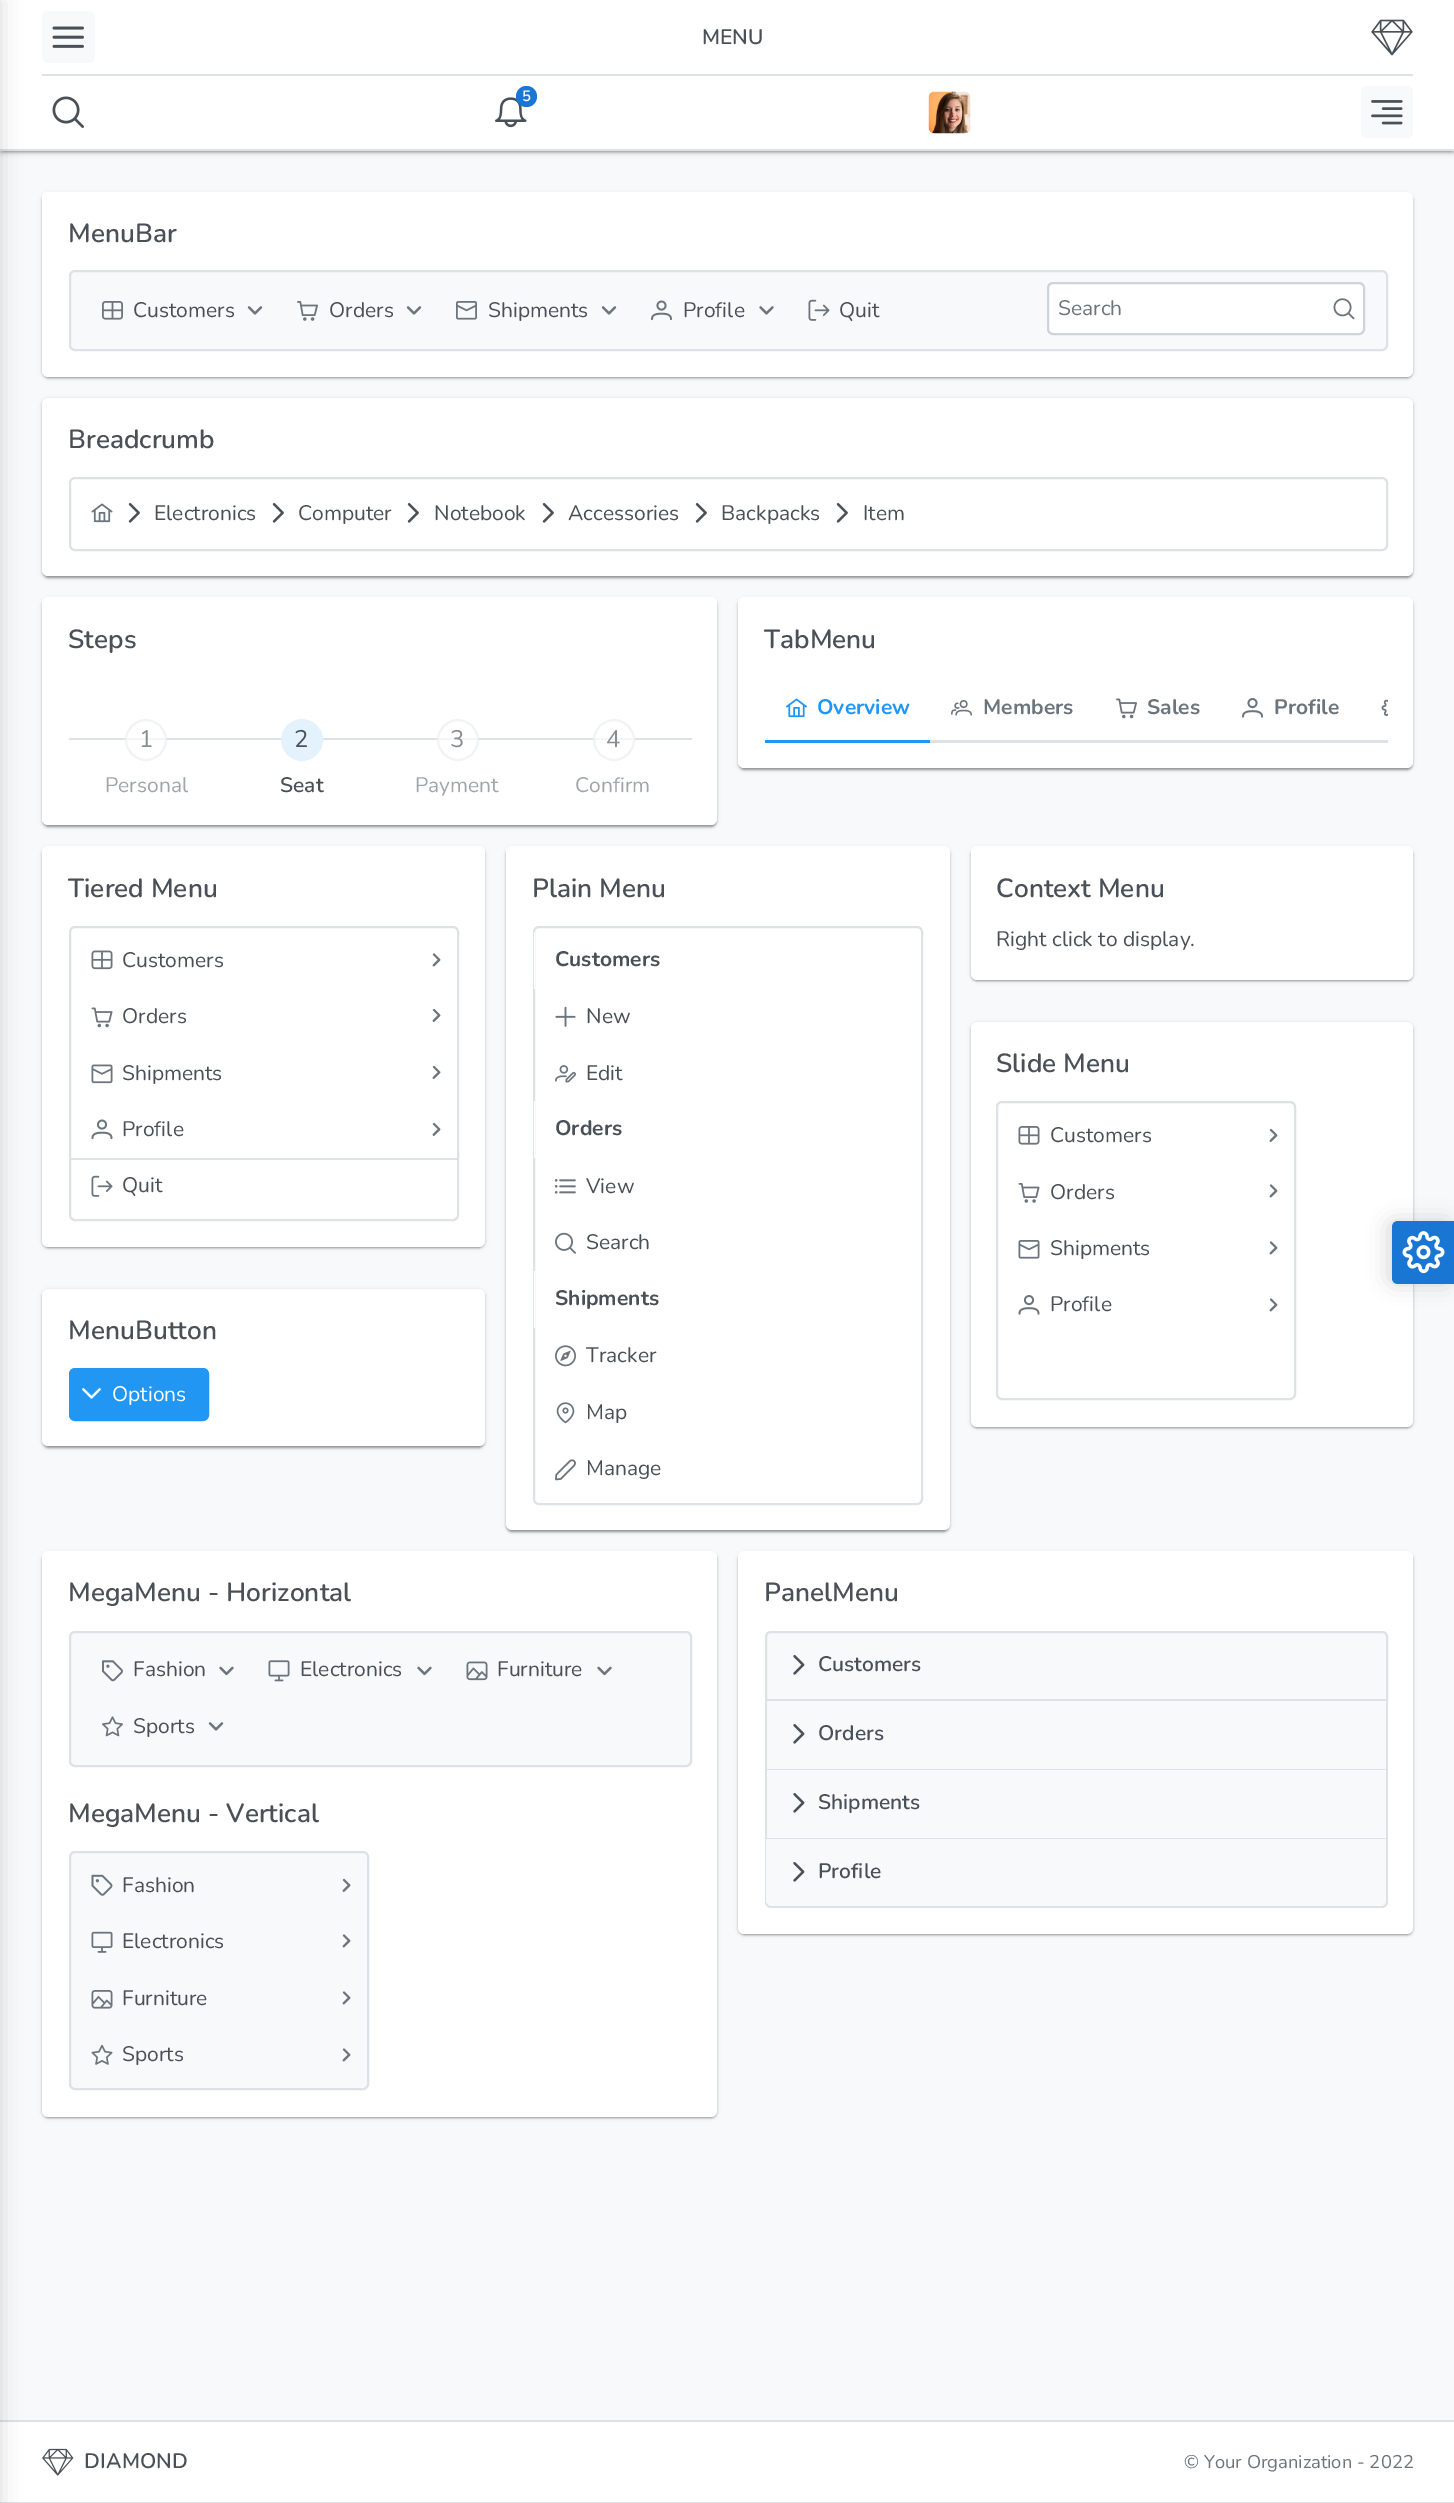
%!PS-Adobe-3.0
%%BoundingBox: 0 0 1454 2503
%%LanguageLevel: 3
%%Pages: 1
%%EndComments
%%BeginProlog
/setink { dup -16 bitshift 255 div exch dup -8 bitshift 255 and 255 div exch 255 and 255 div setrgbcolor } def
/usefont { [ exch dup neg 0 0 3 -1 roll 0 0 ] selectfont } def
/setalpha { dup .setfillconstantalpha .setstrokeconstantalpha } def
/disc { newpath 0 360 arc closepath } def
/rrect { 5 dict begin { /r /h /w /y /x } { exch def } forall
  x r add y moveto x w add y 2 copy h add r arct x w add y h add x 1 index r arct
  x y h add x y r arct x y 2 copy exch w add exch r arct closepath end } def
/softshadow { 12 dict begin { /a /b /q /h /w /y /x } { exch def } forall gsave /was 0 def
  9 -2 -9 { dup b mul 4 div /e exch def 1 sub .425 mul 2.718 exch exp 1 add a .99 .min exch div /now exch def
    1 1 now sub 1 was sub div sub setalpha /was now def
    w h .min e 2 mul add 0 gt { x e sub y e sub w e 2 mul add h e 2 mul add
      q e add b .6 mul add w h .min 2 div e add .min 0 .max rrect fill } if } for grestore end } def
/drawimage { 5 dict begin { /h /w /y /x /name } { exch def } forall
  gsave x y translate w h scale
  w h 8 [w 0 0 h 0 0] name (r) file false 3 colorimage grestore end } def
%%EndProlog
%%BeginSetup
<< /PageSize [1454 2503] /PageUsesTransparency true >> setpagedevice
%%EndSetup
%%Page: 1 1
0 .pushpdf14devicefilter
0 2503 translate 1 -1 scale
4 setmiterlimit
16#F8F9FA setink
0 0 1454 2503 rectfill
16#000000 setink
0 2 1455 150 0 4 0.12 softshadow
0 3 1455 150 0 1.5 0.14 softshadow
3 8 1449 144 0 1 0.2 softshadow
[
    [0 0 1454 149 16#FFFFFF]
    [0 149 1454 2 16#DEE2E6]
    [0 2422 1454 80 16#FFFFFF]
    [0 2420 1454 2 16#DEE2E6]
    [0 2502 1454 1 16#DEE2E6]
] { aload pop setink rectfill } forall
16#000000 setink
-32 0 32 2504 0 10.5 0.15 softshadow
16#DEE2E6 setink
42 74 1371 2 rectfill
16#F8F9FA setink
42 11 53 52 6 rrect fill
(img1.raw) 52 26 32 22 drawimage
/Nunito-SemiBold 21 usefont
16#495057 setink
702 44 moveto (MENU) show
(img2.raw) 1371 19 42 37 drawimage
(img3.raw) 52 96 32 32 drawimage
(img4.raw) 495 97 32 31 drawimage
16#1976D2 setink
526.5 96.5 10.5 disc fill
/Nunito-SemiBold 15 usefont
16#FFFFFF setink
522 101 moveto (5) show
(img5.raw) 928 91 43 43 drawimage
16#F8F9FA setink
1361 86 52 52 6 rrect fill
(img6.raw) 1371 100 32 25 drawimage
16#000000 setink
42 194 1371 184 6 2 0.12 softshadow
42 194 1371 184 6 1 0.14 softshadow
44 197 1368 181 5 1 0.2 softshadow
16#FFFFFF setink
42 192 1371 185 6 rrect fill
/Nunito-SemiBold 26.25 usefont
16#495057 setink
68 242 moveto (MenuBar) show
16#F8F9FA setink
70 271 1317 79 5 rrect gsave fill grestore
16#DEE2E6 setink
2 setlinewidth
stroke
(img7.raw) 102 301 21 19 drawimage
/Nunito-Regular 21 usefont
16#495057 setink
133 317 moveto (Customers) show
(img8.raw) 247 306 16 9 drawimage
(img9.raw) 297 301 21 20 drawimage
329 317 moveto (Orders) show
(img8.raw) 406 306 16 9 drawimage
(img10.raw) 456 301 21 19 drawimage
488 317 moveto (Shipments) show
(img8.raw) 601 306 16 9 drawimage
(img11.raw) 651 300 21 21 drawimage
683 317 moveto (Profile) show
(img12.raw) 759 306 15 9 drawimage
(img13.raw) 808 299 22 22 drawimage
839 317 moveto (Quit) show
16#FFFFFF setink
1048 283 316 51 5 rrect gsave fill grestore
16#CED4DA setink
stroke
16#6C757D setink
1058 315 moveto (Search) show
(img14.raw) 1333 298 22 22 drawimage
16#000000 setink
42 399 1371 179 6 2 0.12 softshadow
42 399 1371 179 6 1 0.14 softshadow
44 402 1368 176 5 1 0.2 softshadow
16#FFFFFF setink
42 398 1371 178 6 rrect fill
/Nunito-SemiBold 26.25 usefont
16#495057 setink
68 448 moveto (Breadcrumb) show
16#DEE2E6 setink
70 478 1317 72 5 rrect stroke
(img15.raw) 91 503 22 20 drawimage
(img16.raw) 128 503 12 20 drawimage
/Nunito-Regular 21 usefont
16#495057 setink
154 520 moveto (Electronics) show
(img16.raw) 272 503 12 20 drawimage
298 520 moveto (Computer) show
(img16.raw) 407 503 12 20 drawimage
434 520 moveto (Notebook) show
(img16.raw) 542 503 12 20 drawimage
568 520 moveto (Accessories) show
(img16.raw) 695 503 12 20 drawimage
721 520 moveto (Backpacks) show
(img16.raw) 836 503 12 20 drawimage
863 520 moveto (Item) show
16#000000 setink
42 599 675 228 6 2 0.12 softshadow
42 599 675 228 6 1 0.14 softshadow
44 602 672 225 5 1 0.2 softshadow
16#FFFFFF setink
42 597 675 228 6 rrect fill
/Nunito-SemiBold 26.25 usefont
16#495057 setink
68 648 moveto (Steps) show
16#DEE2E6 setink
69 738 623 2 rectfill
0.65 setalpha
16#FFFFFF setink
146 740 21 disc fill
16#E9ECEF setink
146 740 20 disc stroke
/Nunito-Regular 24 usefont
1 setalpha
16#888D92 setink
139 747 moveto (1) show
/Nunito-Regular 21 usefont
16#9FA5AB setink
105 792 moveto (Personal) show
16#E3F2FD setink
302 740 20 disc gsave fill grestore
stroke
/Nunito-Regular 24 usefont
16#495057 setink
294 747 moveto (2) show
/Nunito-SemiBold 21 usefont
280 792 moveto (Seat) show
0.65 setalpha
16#FFFFFF setink
458 740 21 disc fill
16#E9ECEF setink
458 740 20 disc stroke
/Nunito-Regular 24 usefont
1 setalpha
16#888D92 setink
450 747 moveto (3) show
/Nunito-Regular 21 usefont
16#9FA5AB setink
415 792 moveto (Payment) show
0.65 setalpha
16#FFFFFF setink
614 740 21 disc fill
16#E9ECEF setink
614 740 20 disc stroke
/Nunito-Regular 24 usefont
1 setalpha
16#888D92 setink
606 747 moveto (4) show
/Nunito-Regular 21 usefont
16#9FA5AB setink
575 792 moveto (Confirm) show
16#000000 setink
738 599 675 171 6 2 0.12 softshadow
738 599 675 171 6 1 0.14 softshadow
740 602 672 168 5 1 0.2 softshadow
16#FFFFFF setink
738 597 675 171 6 rrect fill
/Nunito-SemiBold 26.25 usefont
16#495057 setink
764 648 moveto (TabMenu) show
16#2196F3 setink
765 740 165 3 rectfill
(img17.raw) 786 698 21 20 drawimage
/Nunito-Bold 21 usefont
817 714 moveto (Overview) show
16#DEE2E6 setink
930 740 458 3 rectfill
(img18.raw) 951 700 21 16 drawimage
16#6C757D setink
983 714 moveto (Members) show
(img19.raw) 1116 698 21 21 drawimage
1147 714 moveto (Sales) show
(img20.raw) 1242 698 21 20 drawimage
1274 714 moveto (Profile) show
(img21.raw) 1381 699 7 17 drawimage
16#000000 setink
42 848 443 400 6 2 0.12 softshadow
42 848 443 400 6 1 0.14 softshadow
44 851 439 397 5 1 0.2 softshadow
16#FFFFFF setink
42 846 443 401 6 rrect fill
/Nunito-SemiBold 26.25 usefont
16#495057 setink
68 897 moveto (Tiered Menu) show
16#DEE2E6 setink
70 927 388 293 5 rrect stroke
(img22.raw) 91 950 22 20 drawimage
/Nunito-Regular 21 usefont
16#495057 setink
122 967 moveto (Customers) show
(img23.raw) 432 953 9 14 drawimage
(img24.raw) 91 1007 22 21 drawimage
122 1023 moveto (Orders) show
(img25.raw) 432 1008 9 14 drawimage
(img26.raw) 91 1064 22 20 drawimage
122 1080 moveto (Shipments) show
(img25.raw) 432 1065 9 14 drawimage
(img27.raw) 91 1119 22 21 drawimage
122 1136 moveto (Profile) show
(img25.raw) 432 1122 9 14 drawimage
16#DEE2E6 setink
71 1158 387 2 rectfill
(img28.raw) 91 1175 22 22 drawimage
16#495057 setink
122 1192 moveto (Quit) show
16#000000 setink
42 1290 443 158 6 2 0.12 softshadow
42 1290 443 158 6 1 0.14 softshadow
44 1293 439 155 5 1 0.2 softshadow
16#FFFFFF setink
42 1289 443 157 6 rrect fill
/Nunito-SemiBold 26.25 usefont
16#495057 setink
68 1339 moveto (MenuButton) show
16#2196F3 setink
70 1369 138 51 5 rrect gsave fill grestore
stroke
(img29.raw) 82 1388 19 11 drawimage
/Nunito-Regular 21 usefont
16#FFFFFF setink
112 1401 moveto (Options) show
16#000000 setink
506 848 444 684 6 2 0.12 softshadow
506 848 444 684 6 1 0.14 softshadow
507 851 441 681 5 1 0.2 softshadow
16#FFFFFF setink
506 846 444 684 6 rrect fill
/Nunito-SemiBold 26.25 usefont
16#495057 setink
532 897 moveto (Plain Menu) show
16#DEE2E6 setink
534 927 388 577 5 rrect stroke
16#FFFFFF setink
534 932 1 57 rectfill
/Nunito-Bold 21 usefont
16#495057 setink
555 966 moveto (Customers) show
(img30.raw) 555 1006 21 21 drawimage
/Nunito-Regular 21 usefont
586 1023 moveto (New) show
(img31.raw) 555 1065 21 18 drawimage
586 1080 moveto (Edit) show
16#FFFFFF setink
534 1101 1 57 rectfill
/Nunito-Bold 21 usefont
16#495057 setink
555 1135 moveto (Orders) show
(img32.raw) 554 1179 22 15 drawimage
/Nunito-Regular 21 usefont
586 1193 moveto (View) show
(img33.raw) 555 1232 21 22 drawimage
586 1249 moveto (Search) show
16#FFFFFF setink
534 1271 1 57 rectfill
/Nunito-Bold 21 usefont
16#495057 setink
555 1305 moveto (Shipments) show
(img34.raw) 555 1345 21 22 drawimage
/Nunito-Regular 21 usefont
586 1362 moveto (Tracker) show
(img35.raw) 556 1402 19 22 drawimage
586 1419 moveto (Map) show
(img36.raw) 555 1459 21 22 drawimage
586 1475 moveto (Manage) show
16#000000 setink
971 848 442 133 6 2 0.12 softshadow
971 848 442 133 6 1 0.14 softshadow
972 851 440 130 5 1 0.2 softshadow
16#FFFFFF setink
971 846 442 134 6 rrect fill
/Nunito-SemiBold 26.25 usefont
16#495057 setink
996 897 moveto (Context Menu) show
/Nunito-Regular 21 usefont
996 946 moveto (Right click to display.) show
16#000000 setink
971 1023 442 405 6 2 0.12 softshadow
971 1023 442 405 6 1 0.14 softshadow
972 1026 440 402 5 1 0.2 softshadow
16#FFFFFF setink
971 1022 442 405 6 rrect fill
/Nunito-SemiBold 26.25 usefont
16#495057 setink
996 1072 moveto (Slide Menu) show
16#DEE2E6 setink
997 1102 298 297 5 rrect stroke
(img37.raw) 1018 1126 22 19 drawimage
/Nunito-Regular 21 usefont
16#495057 setink
1050 1142 moveto (Customers) show
(img25.raw) 1269 1128 9 14 drawimage
(img38.raw) 1018 1183 22 20 drawimage
1050 1199 moveto (Orders) show
(img23.raw) 1269 1184 9 14 drawimage
(img39.raw) 1018 1240 22 19 drawimage
1050 1255 moveto (Shipments) show
(img23.raw) 1269 1241 9 14 drawimage
(img40.raw) 1018 1295 22 20 drawimage
1050 1311 moveto (Profile) show
(img23.raw) 1269 1298 9 14 drawimage
16#000000 setink
42 1553 675 565 6 2 0.12 softshadow
42 1553 675 565 6 1 0.14 softshadow
44 1556 672 562 5 1 0.2 softshadow
16#FFFFFF setink
42 1551 675 566 6 rrect fill
/Nunito-SemiBold 26.25 usefont
16#495057 setink
68 1601 moveto (MegaMenu - Horizontal) show
16#F8F9FA setink
70 1632 621 134 5 rrect gsave fill grestore
16#DEE2E6 setink
stroke
(img41.raw) 102 1660 21 22 drawimage
/Nunito-Regular 21 usefont
16#495057 setink
133 1676 moveto (Fashion) show
(img42.raw) 219 1666 15 10 drawimage
(img43.raw) 268 1660 22 22 drawimage
300 1676 moveto (Electronics) show
(img42.raw) 417 1666 15 10 drawimage
(img44.raw) 466 1661 22 20 drawimage
497 1676 moveto (Furniture) show
(img42.raw) 597 1666 15 10 drawimage
(img45.raw) 102 1716 21 21 drawimage
133 1733 moveto (Sports) show
(img8.raw) 208 1722 16 9 drawimage
/Nunito-SemiBold 26.25 usefont
68 1822 moveto (MegaMenu - Vertical) show
16#F8F9FA setink
70 1852 298 237 5 rrect gsave fill grestore
16#DEE2E6 setink
stroke
(img46.raw) 91 1874 22 22 drawimage
/Nunito-Regular 21 usefont
16#495057 setink
122 1892 moveto (Fashion) show
(img47.raw) 342 1878 9 14 drawimage
(img48.raw) 91 1931 22 22 drawimage
122 1948 moveto (Electronics) show
(img49.raw) 342 1934 9 14 drawimage
(img50.raw) 91 1990 22 19 drawimage
122 2005 moveto (Furniture) show
(img49.raw) 342 1991 9 14 drawimage
(img51.raw) 91 2044 22 21 drawimage
122 2061 moveto (Sports) show
(img49.raw) 342 2048 9 14 drawimage
16#000000 setink
738 1553 675 382 6 2 0.12 softshadow
738 1553 675 382 6 1 0.14 softshadow
740 1556 672 379 5 1 0.2 softshadow
16#FFFFFF setink
738 1551 675 383 6 rrect fill
/Nunito-SemiBold 26.25 usefont
16#495057 setink
764 1601 moveto (PanelMenu) show
16#F8F9FA setink
771 1632 moveto 1382 1632 lineto 1385 1632 1387 1634 1387 1637 curveto 1387 1700 lineto 766 1700 lineto 766 1637 lineto 766 1634 768 1632 771 1632 curveto closepath gsave fill grestore
16#DEE2E6 setink
stroke
(img52.raw) 793 1655 12 20 drawimage
/Nunito-SemiBold 21 usefont
16#495057 setink
818 1671 moveto (Customers) show
[
    [767 1701 619 68 16#F8F9FA]
    [1386 1701 2 138 16#DEE2E6]
    [765 1769 623 1 16#DEE2E6]
    [765 1701 2 69 16#DEE2E6]
] { aload pop setink rectfill } forall
(img52.raw) 793 1724 12 20 drawimage
16#495057 setink
818 1740 moveto (Orders) show
[
    [767 1770 619 68 16#F8F9FA]
    [765 1838 623 1 16#DEE2E6]
    [765 1770 2 69 16#DEE2E6]
] { aload pop setink rectfill } forall
(img52.raw) 793 1793 12 20 drawimage
16#495057 setink
818 1809 moveto (Shipments) show
16#F8F9FA setink
765 1839 moveto 1388 1839 lineto 1388 1902 lineto 1388 1905.5 1385.5 1908 1382 1908 curveto 771 1908 lineto 767.5 1908 765 1905.5 765 1902 curveto closepath fill
16#DEE2E6 setink
765 1839 moveto 1388 1839 lineto 1388 1902 lineto 1388 1905 1385 1908 1382 1908 curveto 771 1908 lineto 768 1908 765 1905 765 1902 curveto closepath 766 1839 moveto 1386 1839 lineto 1386 1902 lineto 1386 1904 1384 1906 1382 1906 curveto 771 1906 lineto 769 1906 766 1904 766 1902 curveto closepath eofill
(img52.raw) 793 1862 12 20 drawimage
16#495057 setink
818 1878 moveto (Profile) show
(img53.raw) 42 2448 32 28 drawimage
84 2468 moveto 0.25 0 (DIAMOND) ashow
/Nunito-Regular 18.4 usefont
16#6C757D setink
1184 2468 moveto (© Your Organization - 2022) show
16#000000 setink
1388 1221 63 63 6 10.5 0.15 softshadow
16#1976D2 setink
1398 1221 moveto 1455 1221 lineto 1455 1284 lineto 1398 1284 lineto 1394.5 1284 1392 1281.5 1392 1278 curveto 1392 1227 lineto 1392 1223.5 1394.5 1221 1398 1221 curveto closepath fill
(img54.raw) 1402 1231 43 43 drawimage
.poppdf14devicefilter showpage
%%EOF
